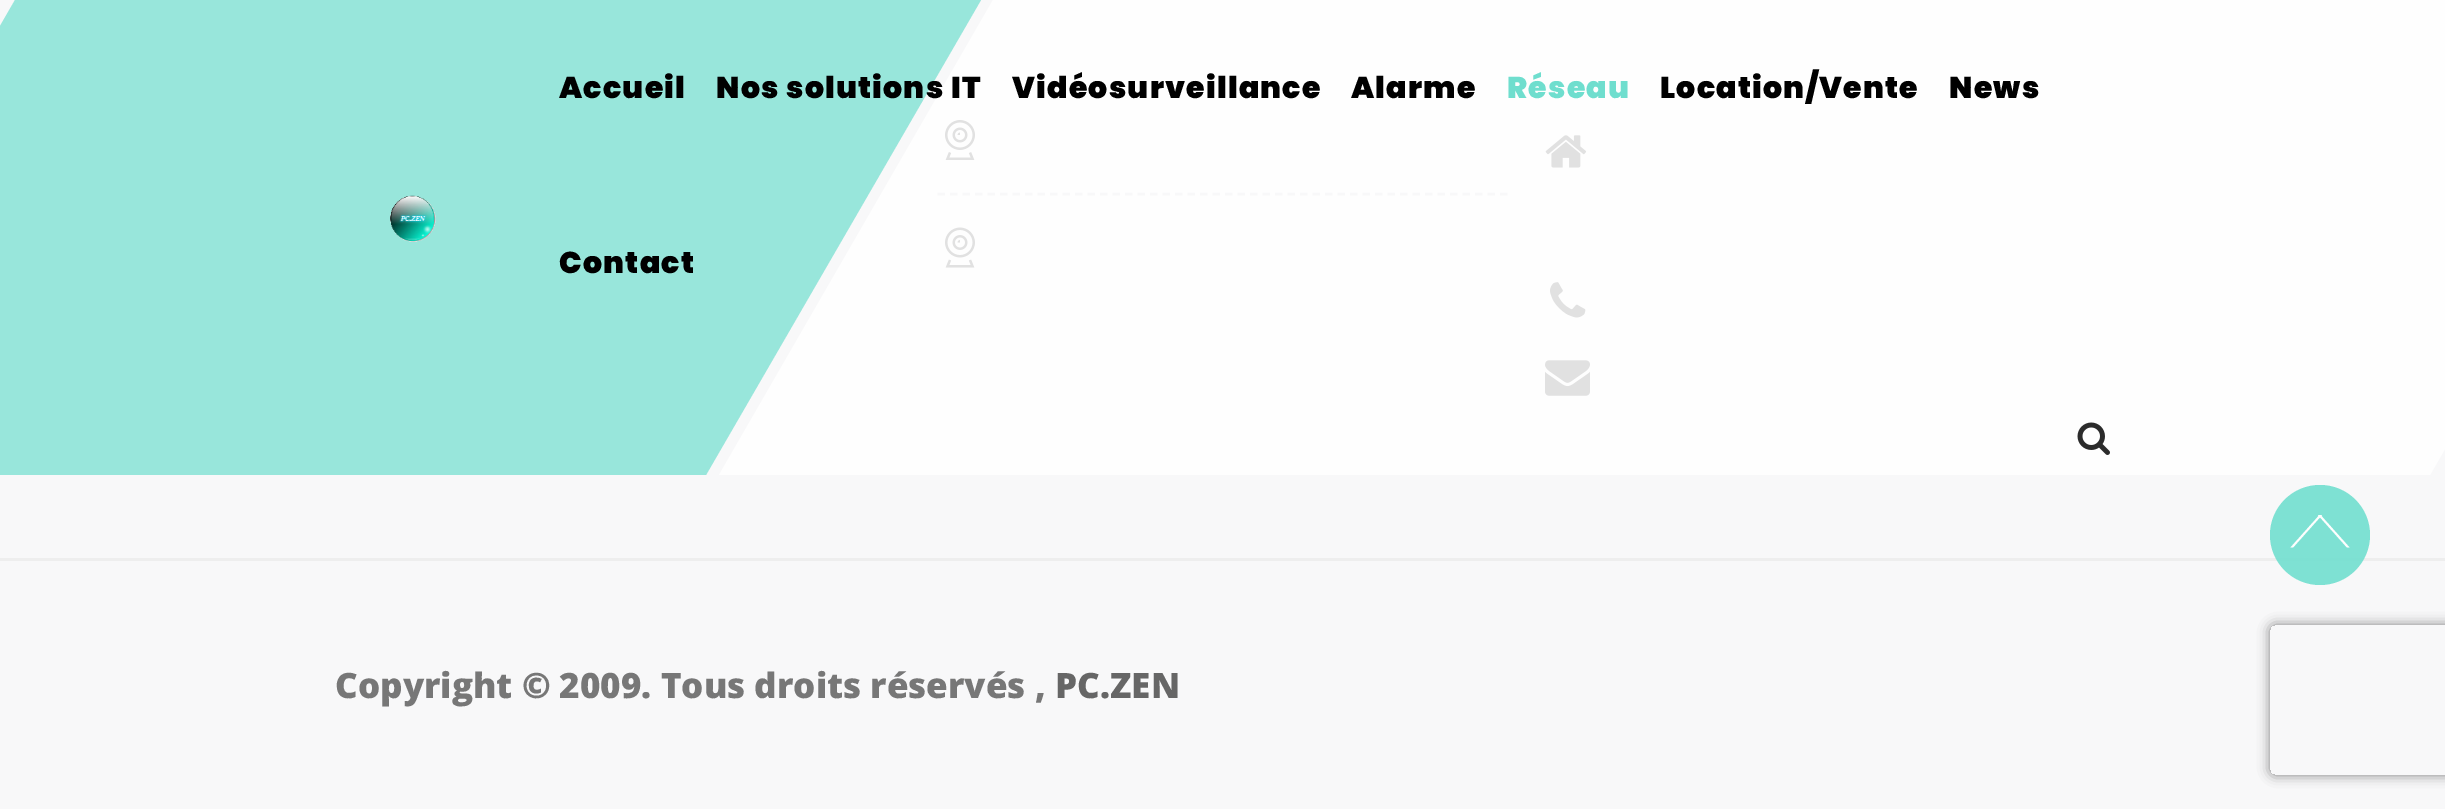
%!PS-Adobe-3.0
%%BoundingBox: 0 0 2445 809
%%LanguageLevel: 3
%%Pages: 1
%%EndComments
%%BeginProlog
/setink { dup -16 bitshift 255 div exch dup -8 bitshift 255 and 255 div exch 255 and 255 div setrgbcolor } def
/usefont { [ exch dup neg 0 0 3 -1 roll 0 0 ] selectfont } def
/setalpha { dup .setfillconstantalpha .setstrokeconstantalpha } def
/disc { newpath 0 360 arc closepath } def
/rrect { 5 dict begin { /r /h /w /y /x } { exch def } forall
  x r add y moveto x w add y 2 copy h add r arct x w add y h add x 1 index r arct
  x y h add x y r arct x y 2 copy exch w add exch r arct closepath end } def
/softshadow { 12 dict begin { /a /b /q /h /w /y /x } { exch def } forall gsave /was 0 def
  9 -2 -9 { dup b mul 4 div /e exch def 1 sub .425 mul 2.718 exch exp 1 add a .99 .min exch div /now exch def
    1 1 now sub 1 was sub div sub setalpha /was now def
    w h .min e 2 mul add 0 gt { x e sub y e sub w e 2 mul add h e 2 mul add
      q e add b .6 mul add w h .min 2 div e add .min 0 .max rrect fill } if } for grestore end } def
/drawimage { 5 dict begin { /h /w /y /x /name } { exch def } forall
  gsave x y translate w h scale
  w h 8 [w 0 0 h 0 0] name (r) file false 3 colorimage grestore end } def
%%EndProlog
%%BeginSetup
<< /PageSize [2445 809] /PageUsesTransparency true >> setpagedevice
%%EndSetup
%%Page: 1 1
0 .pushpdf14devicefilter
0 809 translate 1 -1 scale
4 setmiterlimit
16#F8F8F9 setink
0 0 2445 809 rectfill
16#D3D3D4 setink
2.5 setlinewidth
[7.5 5] 0 setdash
937.5 194 moveto 1507.5 194 lineto stroke
(img3.raw) 945 120 30 40 drawimage
(img4.raw) 945 227 30 41 drawimage
0.7 setalpha
16#6FDECE setink
15 0 moveto 981 0 lineto 706 475 lineto -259 475 lineto closepath fill
1 setalpha
(img5.raw) 1545 135 42 33 drawimage
(img6.raw) 1550 282 36 36 drawimage
(img7.raw) 1545 360 45 36 drawimage
0.85 setalpha
16#FFFFFF setink
993 0 moveto 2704 0 lineto 2430 475 lineto 719 475 lineto closepath fill
1 setalpha
(img1.raw) 390 195 46 47 drawimage
/Poppins-BlackItalic 30 usefont
16#000000 setink
559 98 moveto 1.25 0 (Accueil) ashow
716 98 moveto 1.25 0 (Nos solutions IT) ashow
1012 98 moveto 1.25 0 (Vidéosurveillance) ashow
1351 98 moveto 1.25 0 (Alarme) ashow
16#6FDECE setink
1507 98 moveto 1.25 0 (Réseau) ashow
16#000000 setink
1660 98 moveto 1.25 0 (Location/Vente) ashow
1949 98 moveto 1.25 0 (News) ashow
559 273 moveto 1.25 0 (Contact) ashow
(img2.raw) 2077 422 33 33 drawimage
16#EEEEEE setink
0 558 2445 3 rectfill
/OpenSans-ExtraBold 35 usefont
16#777777 setink
335 698 moveto (Copyright © 2009. Tous droits réservés ,) show
16#666666 setink
1055 698 moveto (PC.ZEN) show
0.89 setalpha
16#6FDECE setink
2320 535 50 disc fill
1 setalpha
16#FEFEFE setink
2319.5 515 moveto 2322 515 lineto 2293 547.5 lineto 2290.5 547.5 lineto closepath fill
2318 515 moveto 2320.5 515 lineto 2349.5 547.5 lineto 2347 547.5 lineto closepath fill
gsave
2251 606 moveto 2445 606 lineto 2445 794 lineto 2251 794 lineto closepath 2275 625 moveto 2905 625 lineto 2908 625 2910 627 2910 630 curveto 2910 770 lineto 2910 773 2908 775 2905 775 curveto 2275 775 lineto 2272 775 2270 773 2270 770 curveto 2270 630 lineto 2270 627 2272 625 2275 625 curveto closepath eoclip newpath
16#808080 setink
2270 625 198 150 5 6 1 softshadow
grestore
.poppdf14devicefilter showpage
%%EOF
